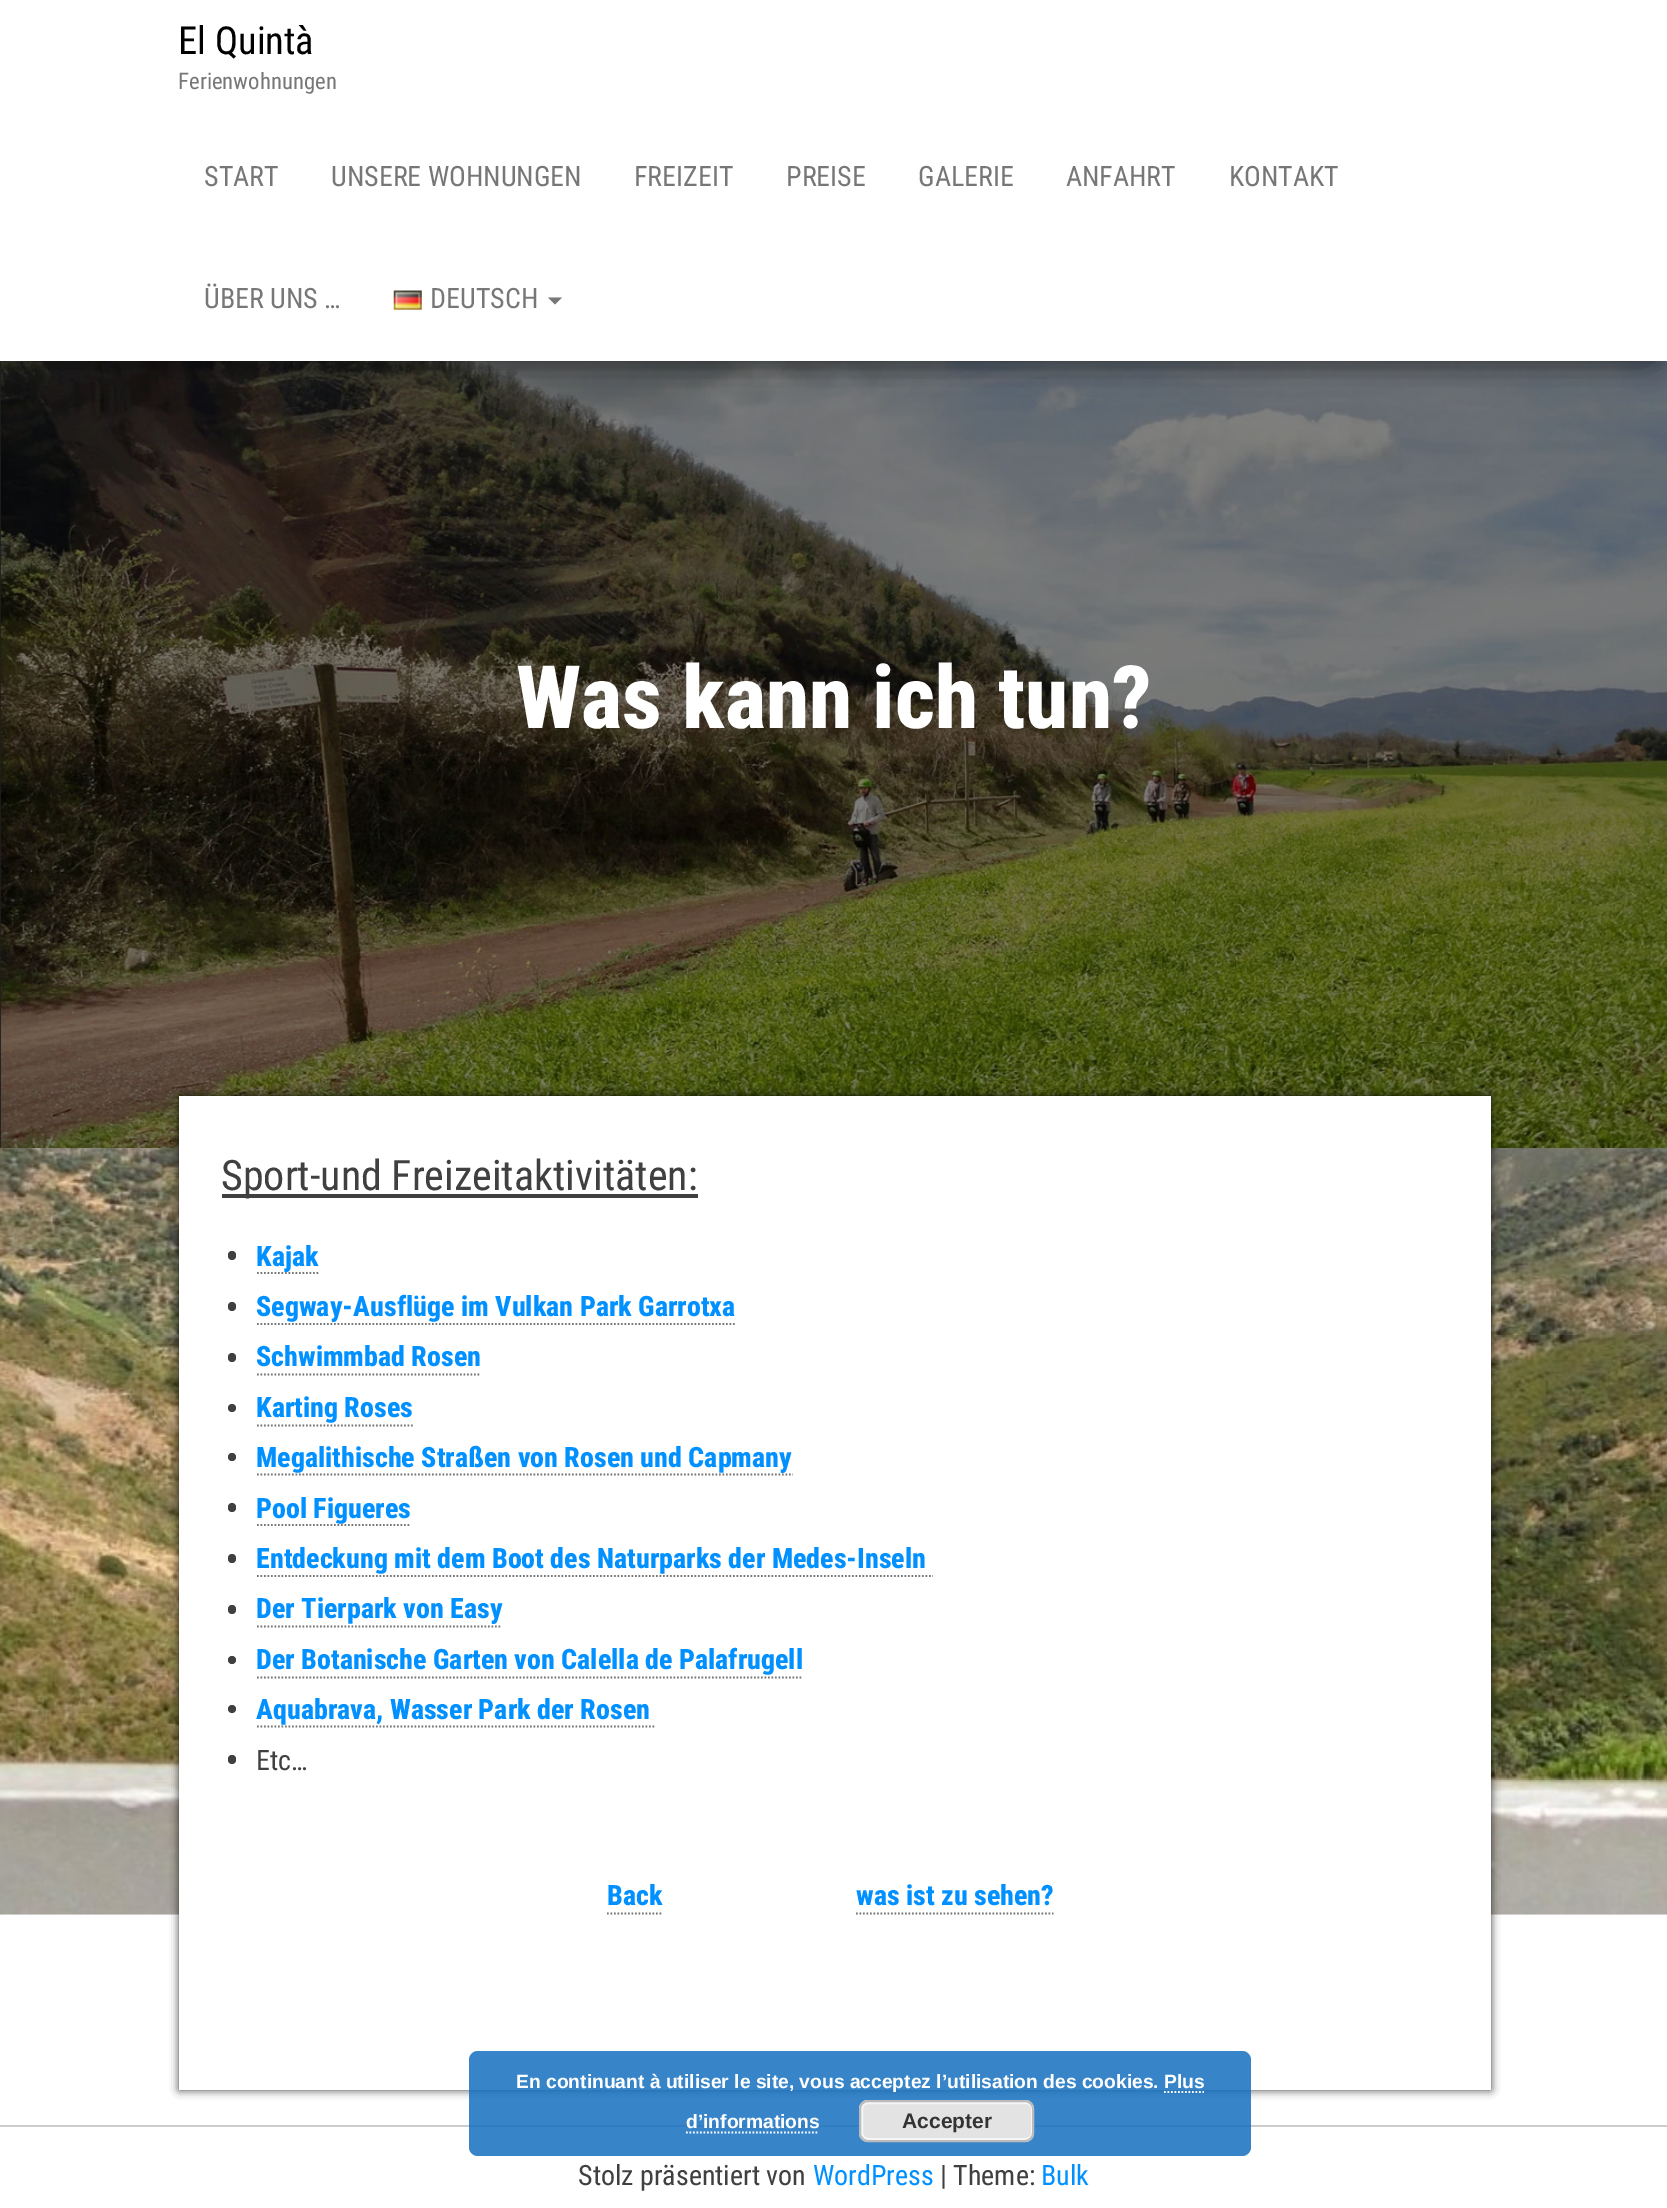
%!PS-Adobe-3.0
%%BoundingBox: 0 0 1667 2208
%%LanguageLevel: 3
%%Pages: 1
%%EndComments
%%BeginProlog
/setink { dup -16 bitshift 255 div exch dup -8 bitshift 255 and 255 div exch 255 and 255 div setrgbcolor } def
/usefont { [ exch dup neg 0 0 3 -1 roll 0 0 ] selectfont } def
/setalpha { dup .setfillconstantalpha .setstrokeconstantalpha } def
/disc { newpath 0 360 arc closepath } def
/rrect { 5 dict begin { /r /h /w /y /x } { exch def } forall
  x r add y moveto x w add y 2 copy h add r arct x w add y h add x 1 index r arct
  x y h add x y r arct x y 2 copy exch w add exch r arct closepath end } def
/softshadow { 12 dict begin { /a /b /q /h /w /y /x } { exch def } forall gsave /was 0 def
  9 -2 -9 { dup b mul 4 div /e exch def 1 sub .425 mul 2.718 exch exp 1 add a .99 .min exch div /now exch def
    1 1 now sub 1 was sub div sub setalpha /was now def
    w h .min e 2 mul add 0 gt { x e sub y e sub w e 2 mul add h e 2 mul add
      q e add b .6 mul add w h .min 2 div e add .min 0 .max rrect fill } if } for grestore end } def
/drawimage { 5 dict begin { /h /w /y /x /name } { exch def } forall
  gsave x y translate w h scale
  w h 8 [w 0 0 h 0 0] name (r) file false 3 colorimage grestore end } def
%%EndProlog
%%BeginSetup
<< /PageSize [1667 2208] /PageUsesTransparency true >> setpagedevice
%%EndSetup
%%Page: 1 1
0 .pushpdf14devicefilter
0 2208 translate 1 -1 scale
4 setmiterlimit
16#FFFFFF setink
0 0 1667 2208 rectfill
(img1.raw) 0 1148 1667 767 drawimage
16#3C3C3C setink
0 361 1 787 rectfill
(img3.raw) 0 361 1667 787 drawimage
0.5 setalpha
16#000000 setink
0 361 1667 787 rectfill
1 setalpha
9 23 1650 343 0 9 0.2 softshadow
0 5 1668 361 0 17.5 0.12 softshadow
21 39 1626 318 0 17.5 0.42 softshadow
16#FFFFFF setink
0 0 1667 361 rectfill
/RobotoCondensed-Regular 38.5 usefont
16#000000 setink
178 54 moveto (El Quintà) show
/RobotoCondensed-Regular 22.75 usefont
16#777777 setink
178 89 moveto (Ferienwohnungen) show
/RobotoCondensed-Regular 28 usefont
[
    [(START) 204 186]
    [(UNSERE WOHNUNGEN) 331 186]
    [(FREIZEIT) 634 186]
    [(PREISE) 786 186]
    [(GALERIE) 918 186]
    [(ANFAHRT) 1066 186]
    [(KONTAKT) 1229 186]
    [(ÜBER UNS …) 204 308]
] { aload pop moveto show } forall
(img2.raw) 393 290 29 20 drawimage
430 308 moveto (DEUTSCH) show
548 297.5 moveto 562 297.5 lineto 555 304.5 lineto closepath fill
/RobotoCondensed-ExtraBold 87.5 usefont
16#FFFFFF setink
516 728 moveto (Was kann ich tun?) show
16#000000 setink
179 1096 1312 994 0 4.5 0.75 softshadow
16#FFFFFF setink
179 1096 1312 994 rectfill
16#404040 setink
222 1194 476 4 rectfill
/RobotoCondensed-Regular 42 usefont
221 1190 moveto (Sport-und Freizeitaktivitäten:) show
228 1251 8 9 4 rrect fill
/RobotoCondensed-ExtraBold 28 usefont
16#0090FF setink
256 1266 moveto (Kajak) show
16#777777 setink
1.8 setlinewidth
[1.75 1.75] 0 setdash
257 1273 moveto 318.5 1273 lineto stroke
16#404040 setink
228 1302 8 9 4 rrect fill
16#0090FF setink
256 1316 moveto (Segway-Ausflüge im Vulkan Park Garrotxa) show
16#777777 setink
257 1324 moveto 735 1324 lineto stroke
16#404040 setink
228 1353 8 9 4 rrect fill
16#0090FF setink
256 1366 moveto (Schwimmbad Rosen) show
16#777777 setink
257 1374.5 moveto 481 1374.5 lineto stroke
16#404040 setink
232 1408 4 disc fill
16#0090FF setink
256 1417 moveto (Karting Roses) show
16#777777 setink
257 1425.5 moveto 413 1425.5 lineto stroke
16#404040 setink
232 1457 4 disc fill
16#0090FF setink
256 1467 moveto (Megalithische Straßen von Rosen und Capmany) show
16#777777 setink
257 1474.5 moveto 793 1474.5 lineto stroke
16#404040 setink
228 1503 8 9 4 rrect fill
16#0090FF setink
256 1518 moveto (Pool Figueres) show
16#777777 setink
257 1525 moveto 411 1525 lineto stroke
16#404040 setink
228 1554 8 9 4 rrect fill
16#0090FF setink
256 1568 moveto (Entdeckung mit dem Boot des Naturparks der Medes-Inseln) show
16#777777 setink
257 1576 moveto 933 1576 lineto stroke
16#404040 setink
228 1605 8 9 4 rrect fill
16#0090FF setink
256 1618 moveto (Der Tierpark von Easy) show
16#777777 setink
257 1626.5 moveto 502 1626.5 lineto stroke
16#404040 setink
232 1660 4 disc fill
16#0090FF setink
256 1669 moveto (Der Botanische Garten von Calella de Palafrugell) show
16#777777 setink
257 1677.5 moveto 803 1677.5 lineto stroke
16#404040 setink
232 1709 4 disc fill
16#0090FF setink
256 1719 moveto (Aquabrava, Wasser Park der Rosen) show
16#777777 setink
257 1726.5 moveto 656 1726.5 lineto stroke
16#404040 setink
228 1755 8 9 4 rrect fill
/RobotoCondensed-Regular 28 usefont
256 1770 moveto (Etc…) show
/RobotoCondensed-ExtraBold 28 usefont
16#0090FF setink
607 1905 moveto (Back) show
16#777777 setink
607 1913.5 moveto 663 1913.5 lineto stroke
16#0090FF setink
856 1905 moveto (was ist zu sehen?) show
16#777777 setink
856 1913.5 moveto 1053.5 1913.5 lineto stroke
16#CCCCCC setink
0 2125 1667 2 rectfill
/RobotoCondensed-Regular 28 usefont
16#404040 setink
578 2185 moveto (Stolz präsentiert von) show
16#0090FF setink
813 2185 moveto (WordPress) show
16#404040 setink
940 2185 moveto (| Theme:) show
16#0090FF setink
1041 2185 moveto (Bulk) show
0.85 setalpha
16#156FBF setink
469 2051 782 105 9 rrect fill
/LiberationSans-Bold 19.25 usefont
1 setalpha
16#FFFFFF setink
516 2088 moveto (En continuant à utiliser le site, vous acceptez l’utilisation des cookies. Plus) show
686 2128 moveto (d’informations) show
1164 2092 moveto 1204 2092 lineto stroke
686 2132.5 moveto 819 2132.5 lineto stroke
16#E3E3E3 setink
859 2100 175 42 9 rrect fill
16#F6F6F6 setink
2 setlinewidth
[] 0 setdash
862 2103 170 36 6 rrect stroke
16#BBBBBB setink
860 2101 173 40 8 rrect stroke
/LiberationSans-Bold 21 usefont
16#333333 setink
902 2128 moveto (Accepter) show
.poppdf14devicefilter showpage
%%EOF
